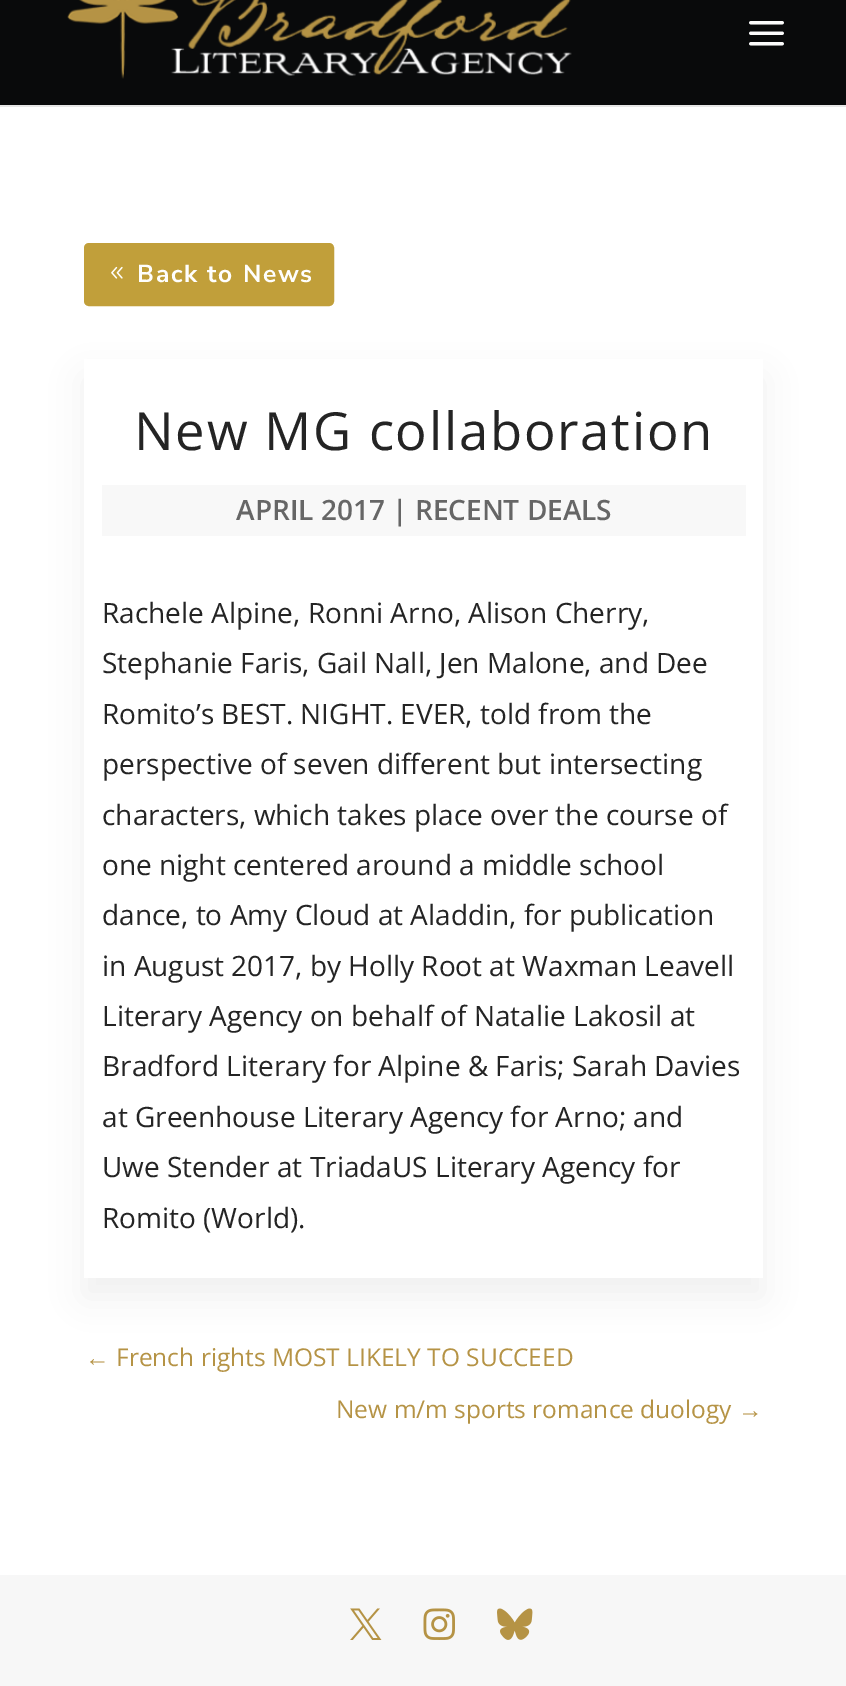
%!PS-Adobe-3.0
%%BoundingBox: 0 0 846 1686
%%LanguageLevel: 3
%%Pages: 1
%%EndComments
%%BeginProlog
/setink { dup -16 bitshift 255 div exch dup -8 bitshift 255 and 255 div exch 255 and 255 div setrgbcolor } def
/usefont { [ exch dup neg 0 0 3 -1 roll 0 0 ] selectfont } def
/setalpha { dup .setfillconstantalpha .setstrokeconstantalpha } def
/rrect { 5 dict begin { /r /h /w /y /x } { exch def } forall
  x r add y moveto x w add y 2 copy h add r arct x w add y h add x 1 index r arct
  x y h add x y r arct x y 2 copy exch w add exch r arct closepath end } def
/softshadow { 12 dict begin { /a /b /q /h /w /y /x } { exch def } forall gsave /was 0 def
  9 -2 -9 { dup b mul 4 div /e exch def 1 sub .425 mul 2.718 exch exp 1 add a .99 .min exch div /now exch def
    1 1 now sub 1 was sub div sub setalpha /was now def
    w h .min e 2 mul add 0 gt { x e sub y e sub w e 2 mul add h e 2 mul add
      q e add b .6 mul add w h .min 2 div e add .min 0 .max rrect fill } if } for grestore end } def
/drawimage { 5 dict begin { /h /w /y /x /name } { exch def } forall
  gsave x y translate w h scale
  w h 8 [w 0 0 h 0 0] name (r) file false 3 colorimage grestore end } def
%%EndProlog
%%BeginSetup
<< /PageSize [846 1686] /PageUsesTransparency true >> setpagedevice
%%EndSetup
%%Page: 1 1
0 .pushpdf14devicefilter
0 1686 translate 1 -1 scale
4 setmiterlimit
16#FFFFFF setink
0 0 846 1686 rectfill
16#E6E6E6 setink
0 105 846 2 rectfill
16#090A0B setink
0 0 846 105 rectfill
(img1.raw) 67 0 505 79 drawimage
(img2.raw) 749 21 35 25 drawimage
16#C19F3A setink
86 245 246 59 3 rrect gsave fill grestore
4 setlinewidth
stroke
(img3.raw) 111 266 12 13 drawimage
/NunitoSans-Bold 24.5 usefont
16#FEFEFD setink
137 282 moveto 1.75 0 (Back to News) ashow
gsave
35 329 moveto 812 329 lineto 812 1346 lineto 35 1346 lineto closepath 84 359 moveto 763 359 lineto 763 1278 lineto 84 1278 lineto closepath eoclip newpath
16#EFEFEF setink
84 378 679 919 0 16 1 softshadow
grestore
/OpenSans-Regular 52.5 usefont
16#242424 setink
134 450 moveto 1.75 0 (New MG collaboration) ashow
16#F8F8F8 setink
102 485 644 51 rectfill
/OpenSans-SemiBold 28 usefont
16#666666 setink
236 520 moveto (APRIL 2017 | RECENT DEALS) show
/OpenSans-Regular 28 usefont
16#242424 setink
[
    [(Rachele Alpine, Ronni Arno, Alison Cherry,) 102 623]
    [(Stephanie Faris, Gail Nall, Jen Malone, and Dee) 102 673]
    [(Romito’s BEST. NIGHT. EVER, told from the) 102 724]
    [(perspective of seven different but intersecting) 102 774]
    [(characters, which takes place over the course of) 102 825]
    [(one night centered around a middle school) 102 875]
    [(dance, to Amy Cloud at Aladdin, for publication) 102 925]
    [(in August 2017, by Holly Root at Waxman Leavell) 102 976]
    [(Literary Agency on behalf of Natalie Lakosil at) 102 1026]
    [(Bradford Literary for Alpine & Faris; Sarah Davies) 102 1076]
    [(at Greenhouse Literary Agency for Arno; and) 102 1127]
    [(Uwe Stender at TriadaUS Literary Agency for) 102 1177]
    [(Romito \(World\).) 102 1228]
] { aload pop moveto show } forall
/LiberationSans-Regular 24.5 usefont
16#B59345 setink
85 1366 moveto (←) show
/OpenSans-Regular 24.5 usefont
116 1366 moveto (French rights MOST LIKELY TO SUCCEED) show
336 1418 moveto (New m/m sports romance duology) show
/LiberationSans-Regular 24.5 usefont
738 1418 moveto (→) show
16#F7F7F7 setink
0 1575 846 111 rectfill
(img4.raw) 350 1608 32 32 drawimage
(img5.raw) 423 1608 32 32 drawimage
(img6.raw) 497 1608 36 32 drawimage
.poppdf14devicefilter showpage
%%EOF
